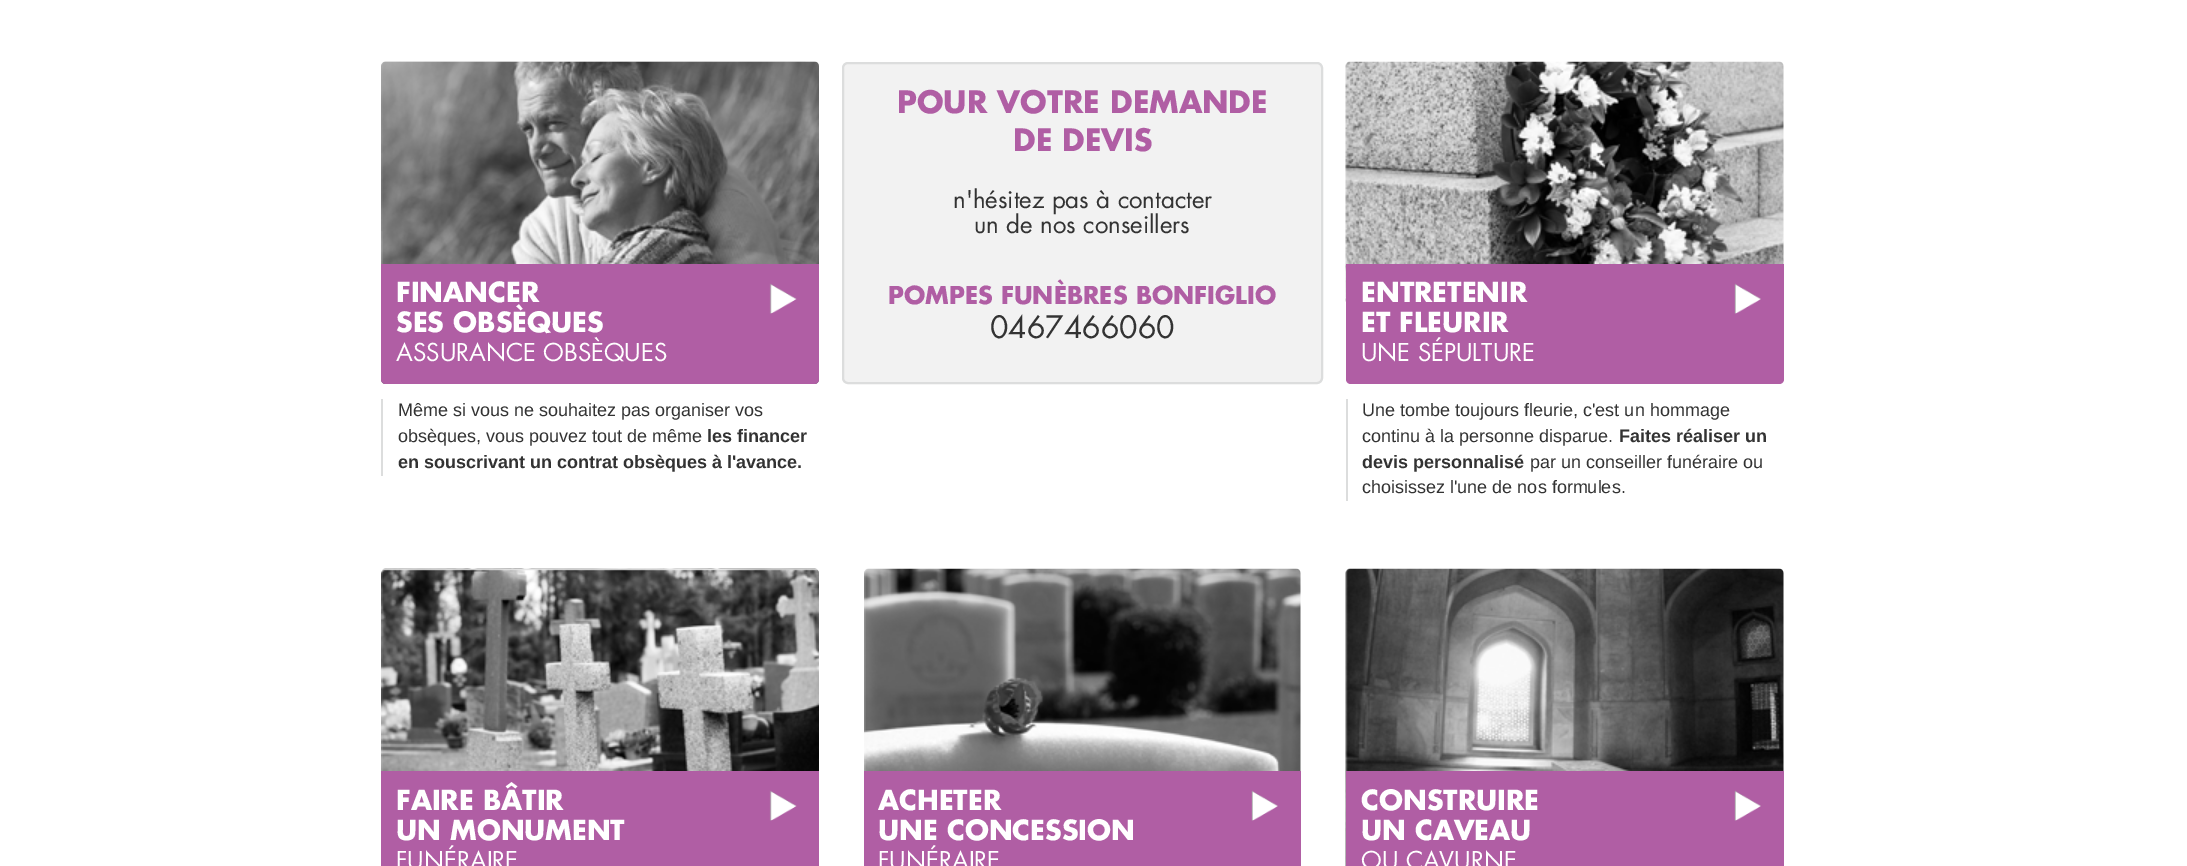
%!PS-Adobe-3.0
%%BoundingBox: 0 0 2187 866
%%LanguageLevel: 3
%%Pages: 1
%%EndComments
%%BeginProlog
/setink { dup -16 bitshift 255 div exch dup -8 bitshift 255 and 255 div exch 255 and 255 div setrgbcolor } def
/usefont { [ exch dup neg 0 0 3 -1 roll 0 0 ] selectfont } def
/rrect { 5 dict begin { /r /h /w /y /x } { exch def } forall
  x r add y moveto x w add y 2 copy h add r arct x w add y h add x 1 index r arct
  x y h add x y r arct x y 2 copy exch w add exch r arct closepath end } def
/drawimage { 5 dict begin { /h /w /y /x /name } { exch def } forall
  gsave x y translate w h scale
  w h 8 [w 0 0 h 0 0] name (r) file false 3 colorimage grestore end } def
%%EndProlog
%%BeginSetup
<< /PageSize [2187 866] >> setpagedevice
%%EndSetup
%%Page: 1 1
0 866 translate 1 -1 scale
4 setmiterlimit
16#FFFFFF setink
0 0 2187 866 rectfill
16#F2F2F2 setink
843 63 479 320 5 rrect gsave fill grestore
16#DCDDDD setink
2 setlinewidth
stroke
/Futura-Bold 30 usefont
16#B05EA4 setink
897 113 moveto (POUR VOTRE DEMANDE) show
1013 151 moveto (DE DEVIS) show
/Futura-Regular 24 usefont
16#333333 setink
953 208 moveto (n'hésitez pas à contacter) show
974 233 moveto (un de nos conseillers) show
/Futura-Bold 24 usefont
16#B05EA4 setink
888 304 moveto (POMPES FUNÈBRES BONFIGLIO) show
/Futura-Regular 30 usefont
16#333333 setink
990 338 moveto (0467466060) show
(img1.raw) 381 61 438 323 drawimage
16#B05EA4 setink
381 264 moveto 819 264 lineto 819 379 lineto 819 382 817 384 814 384 curveto 386 384 lineto 383 384 381 382 381 379 curveto closepath fill
/Futura-Bold 27 usefont
16#FFFFFF setink
396 302 moveto (FINANCER) show
396 332 moveto (SES OBSÈQUES) show
(img2.raw) 769 283 28 31 drawimage
/Futura-Regular 24 usefont
396 361 moveto (ASSURANCE OBSÈQUES) show
16#DCDDDD setink
381 399 2 77 rectfill
/LiberationSans-Regular 18 usefont
16#333333 setink
398 416 moveto (Même si vous ne souhaitez pas organiser vos) show
398 442 moveto (obsèques, vous pouvez tout de même) show
/LiberationSans-Bold 18 usefont
707 442 moveto (les financer) show
398 468 moveto (en souscrivant un contrat obsèques à l'avance.) show
(img3.raw) 1345 61 439 241 drawimage
16#B05EA4 setink
1346 264 moveto 1784 264 lineto 1784 379 lineto 1784 382 1782 384 1779 384 curveto 1351 384 lineto 1348 384 1346 382 1346 379 curveto closepath fill
/Futura-Bold 27 usefont
16#FFFFFF setink
1361 302 moveto (ENTRETENIR) show
1361 332 moveto (ET FLEURIR) show
(img4.raw) 1734 283 27 31 drawimage
/Futura-Regular 24 usefont
1361 361 moveto (UNE SÉPULTURE) show
16#DCDDDD setink
1346 399 2 102 rectfill
/LiberationSans-Regular 18 usefont
16#333333 setink
1362 416 moveto (Une tombe toujours fleurie, c'est un hommage) show
1362 442 moveto (continu à la personne disparue.) show
/LiberationSans-Bold 18 usefont
1619 442 moveto (Faites réaliser un) show
1362 468 moveto (devis personnalisé) show
/LiberationSans-Regular 18 usefont
1530 468 moveto (par un conseiller funéraire ou) show
1362 493 moveto (choisissez l'une de nos formules.) show
(img5.raw) 381 568 438 203 drawimage
16#B05EA4 setink
381 771 438 95 rectfill
/Futura-Bold 27 usefont
16#FFFFFF setink
396 810 moveto (FAIRE BÂTIR) show
396 840 moveto (UN MONUMENT) show
(img2.raw) 769 790 28 31 drawimage
/Futura-Regular 24 usefont
396 869 moveto (FUNÉRAIRE) show
(img6.raw) 864 568 437 203 drawimage
16#B05EA4 setink
864 771 437 95 rectfill
/Futura-Bold 27 usefont
16#FFFFFF setink
878 810 moveto (ACHETER) show
878 840 moveto (UNE CONCESSION) show
(img7.raw) 1251 790 27 31 drawimage
/Futura-Regular 24 usefont
878 869 moveto (FUNÉRAIRE) show
(img8.raw) 1345 568 439 298 drawimage
16#B05EA4 setink
1346 771 438 95 rectfill
/Futura-Bold 27 usefont
16#FFFFFF setink
1361 810 moveto (CONSTRUIRE) show
1361 840 moveto (UN CAVEAU) show
(img4.raw) 1734 790 27 31 drawimage
/Futura-Regular 24 usefont
1361 869 moveto (OU CAVURNE) show
showpage
%%EOF
